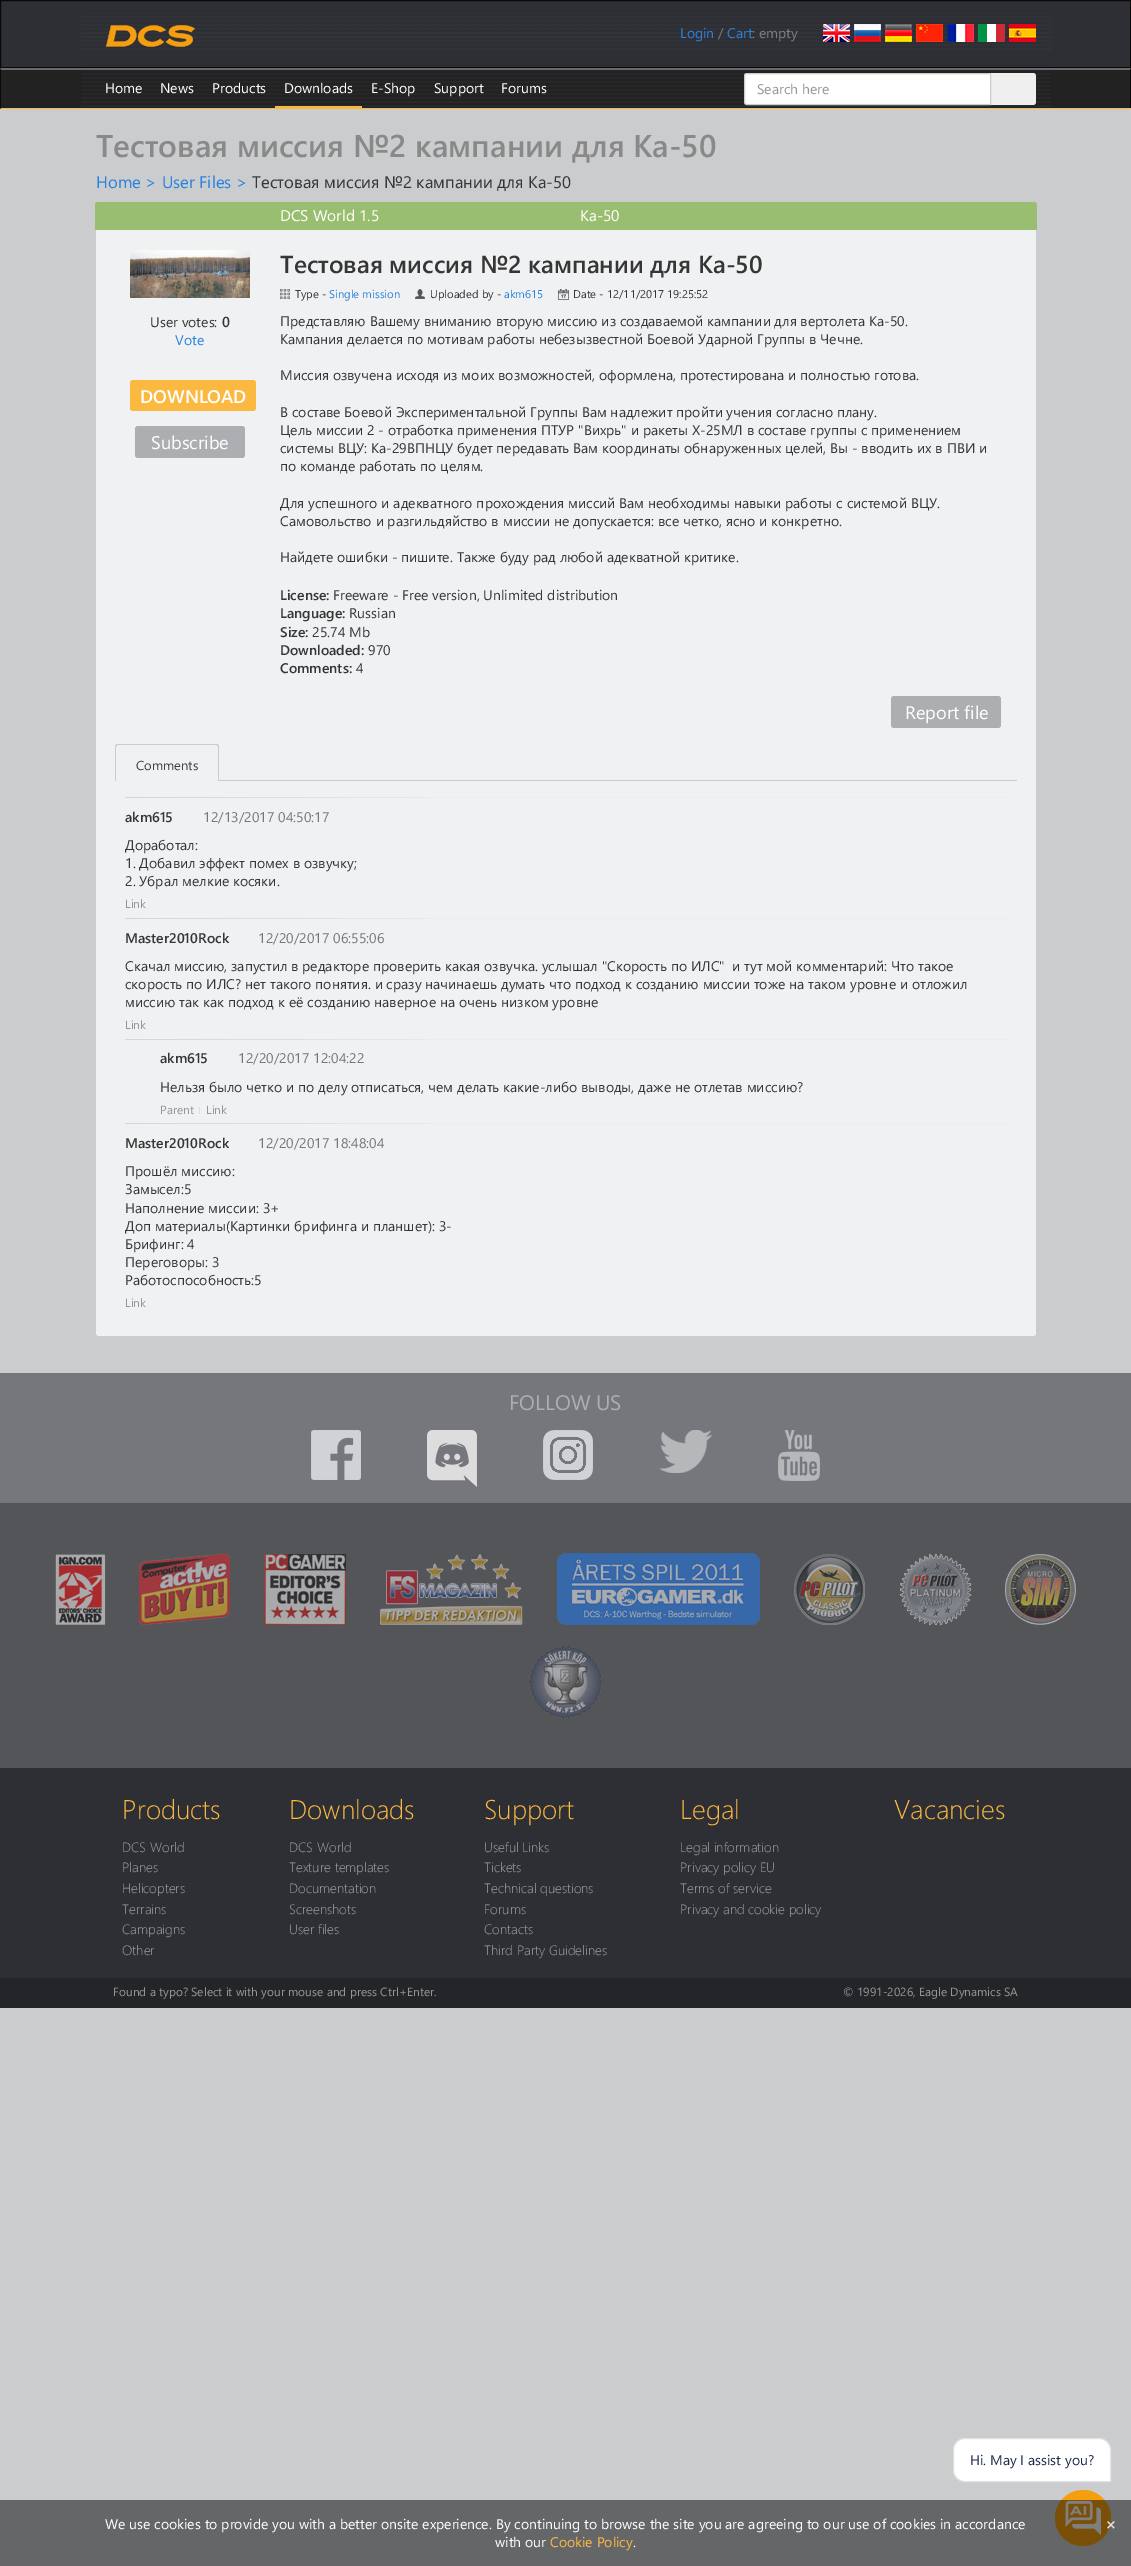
%!PS-Adobe-3.0
%%BoundingBox: 0 0 1131 2566
%%LanguageLevel: 3
%%Pages: 1
%%EndComments
%%BeginProlog
/setink { dup -16 bitshift 255 div exch dup -8 bitshift 255 and 255 div exch 255 and 255 div setrgbcolor } def
/usefont { [ exch dup neg 0 0 3 -1 roll 0 0 ] selectfont } def
/setalpha { dup .setfillconstantalpha .setstrokeconstantalpha } def
/disc { newpath 0 360 arc closepath } def
/rrect { 5 dict begin { /r /h /w /y /x } { exch def } forall
  x r add y moveto x w add y 2 copy h add r arct x w add y h add x 1 index r arct
  x y h add x y r arct x y 2 copy exch w add exch r arct closepath end } def
/drawimage { 5 dict begin { /h /w /y /x /name } { exch def } forall
  gsave x y translate w h scale
  w h 8 [w 0 0 h 0 0] name (r) file false 3 colorimage grestore end } def
%%EndProlog
%%BeginSetup
<< /PageSize [1131 2566] /PageUsesTransparency true >> setpagedevice
%%EndSetup
%%Page: 1 1
0 .pushpdf14devicefilter
0 2566 translate 1 -1 scale
4 setmiterlimit
16#CACCCE setink
0 0 1131 2566 rectfill
16#2E2F34 setink
0.5 0.5 moveto 1130.5 0.5 lineto 1130.5 67.5 lineto 0.5 67.5 lineto closepath gsave fill grestore
16#080808 setink
stroke
(img1.raw) 81 13 970 37 drawimage
(img2.raw) 106 25 89 22 drawimage
/SegoeUI-Regular 14 usefont
16#2B82DC setink
680 38 moveto (Login) show
16#7F8180 setink
718 38 moveto (/) show
16#2B82DC setink
727 38 moveto (Cart) show
16#7F8180 setink
752 38 moveto (: empty) show
(img3.raw) 823 24 27 18 drawimage
(img4.raw) 854 24 27 18 drawimage
(img5.raw) 885 24 27 18 drawimage
(img6.raw) 916 24 27 18 drawimage
(img7.raw) 947 24 27 18 drawimage
(img8.raw) 978 24 27 18 drawimage
(img9.raw) 1009 24 27 18 drawimage
16#222222 setink
1 70 1129 38 rectfill
16#6A6A6A setink
0 68 moveto 1131 68 lineto 1130 70 lineto 1 70 lineto closepath fill
16#080808 setink
1131 68 moveto 1131 109 lineto 1130 108 lineto 1130 70 lineto closepath fill
16#FBB840 setink
0 108 1131 1 rectfill
16#080808 setink
0 109 moveto 0 68 lineto 1 70 lineto 1 108 lineto closepath fill
(img10.raw) 81 70 970 37 drawimage
16#FFFFFF setink
[
    [(Home) 105 93]
    [(News) 160 93]
    [(Products) 212 93]
] { aload pop moveto show } forall
16#FBB840 setink
275 106 87 2 rectfill
16#FFFFFF setink
[
    [(Downloads) 284 93]
    [(E-Shop) 371 93]
    [(Support) 434 93]
    [(Forums) 501 93]
] { aload pop moveto show } forall
16#EFEFEF setink
990 73 moveto 1033 73 lineto 1034.5 73 1036 74.5 1036 76 curveto 1036 102 lineto 1036 103.5 1034.5 105 1033 105 curveto 990 105 lineto closepath fill
16#FFFFFF setink
747 73.5 moveto 990.5 73.5 lineto 990.5 104.5 lineto 747 104.5 lineto 745.5 104.5 744.5 103.5 744.5 102 curveto 744.5 76 lineto 744.5 74.5 745.5 73.5 747 73.5 curveto closepath gsave fill grestore
16#CCCCCC setink
stroke
16#969696 setink
757 94 moveto (Search here) show
/SegoeUI-SemiBold 31.5 usefont
16#898989 setink
96 157 moveto (Тестовая миссия №2 кампании для Ка-50) show
/SegoeUI-Regular 16.75 usefont
16#2B82DC setink
96 188 moveto (Home > User Files >) show
16#363636 setink
252 188 moveto (Тестовая миссия №2 кампании для Ка-50) show
16#F0F1F2 setink
96 203 940 1133 3 rrect fill
16#99BE70 setink
98 202 moveto 1034 202 lineto 1035.5 202 1037 203.5 1037 205 curveto 1037 230 lineto 95 230 lineto 95 205 lineto 95 203.5 96.5 202 98 202 curveto closepath fill
/SegoeUI-Regular 15.5 usefont
16#FFFFFF setink
280 221 moveto (DCS World 1.5) show
580 221 moveto (Ka-50) show
(img11.raw) 130 250 120 48 drawimage
/SegoeUI-Regular 14 usefont
16#363636 setink
150 327 moveto (User votes:) show
/SegoeUI-Bold 14 usefont
222 327 moveto (0) show
/SegoeUI-Regular 14 usefont
16#2B82DC setink
175 345 moveto (Vote) show
16#FCB941 setink
130 380 126 31 3 rrect fill
/SegoeUI-SemiBold 18.25 usefont
16#FFFFFF setink
140 403 moveto (DOWNLOAD) show
16#ADAEB2 setink
135 426 110 32 3 rrect fill
/SegoeUI-Regular 18.25 usefont
16#FFFFFF setink
151 449 moveto (Subscribe) show
/SegoeUI-SemiBold 24.5 usefont
16#363636 setink
280 273 moveto (Тестовая миссия №2 кампании для Ка-50) show
(img12.raw) 280 289 10 10 drawimage
/SegoeUI-Regular 11.25 usefont
295 298 moveto (Type -) show
16#2B82DC setink
329 298 moveto (Single mission) show
(img13.raw) 415 289 10 10 drawimage
16#363636 setink
430 298 moveto (Uploaded by -) show
16#2B82DC setink
504 298 moveto (akm615) show
(img14.raw) 558 289 11 11 drawimage
16#363636 setink
573 298 moveto (Date - 12/11/2017 19:25:52) show
/SegoeUI-Regular 14 usefont
[
    [(Представляю Вашему вниманию вторую миссию из создаваемой кампании для вертолета Ка-50.) 280 326]
    [(Кампания делается по мотивам работы небезызвестной Боевой Ударной Группы в Чечне.) 280 344]
    [(Миссия озвучена исходя из моих возможностей, оформлена, протестирована и полностью готова.) 280 380]
    [(В составе Боевой Экспериментальной Группы Вам надлежит пройти учения согласно плану.) 280 417]
    [(Цель миссии 2 - отработка применения ПТУР "Вихрь" и ракеты Х-25МЛ в составе группы с применением) 280 435]
    [(системы ВЦУ: Ка-29ВПНЦУ будет передавать Вам координаты обнаруженных целей, Вы - вводить их в ПВИ и) 280 453]
    [(по команде работать по целям.) 280 471]
    [(Для успешного и адекватного прохождения миссий Вам необходимы навыки работы с системой ВЦУ.) 280 508]
    [(Самовольство и разгильдяйство в миссии не допускается: все четко, ясно и конкретно.) 280 526]
    [(Найдете ошибки - пишите. Также буду рад любой адекватной критике.) 280 562]
] { aload pop moveto show } forall
/SegoeUI-SemiBold 14 usefont
280 600 moveto (License:) show
/SegoeUI-Regular 14 usefont
333 600 moveto (Freeware - Free version, Unlimited distribution) show
/SegoeUI-SemiBold 14 usefont
280 618 moveto (Language:) show
/SegoeUI-Regular 14 usefont
349 618 moveto (Russian) show
/SegoeUI-SemiBold 14 usefont
280 637 moveto (Size:) show
/SegoeUI-Regular 14 usefont
312 637 moveto (25.74 Mb) show
/SegoeUI-SemiBold 14 usefont
280 655 moveto (Downloaded:) show
/SegoeUI-Regular 14 usefont
368 655 moveto (970) show
/SegoeUI-SemiBold 14 usefont
280 673 moveto (Comments:) show
/SegoeUI-Regular 14 usefont
356 673 moveto (4) show
16#ADAEB2 setink
891 696 110 32 3 rrect fill
/SegoeUI-Regular 18.25 usefont
16#FFFFFF setink
905 719 moveto (Report file) show
16#CCCCCC setink
115 780 902 1 rectfill
118 744 moveto 216 744 lineto 218 744 219 745 219 747 curveto 219 780 lineto 115 780 lineto 115 747 lineto 115 745 116 744 118 744 curveto closepath 118 745 moveto 216 745 lineto 217 745 218 746 218 747 curveto 218 780 lineto 116 780 lineto 116 747 lineto 116 746 117 745 118 745 curveto closepath eofill
16#F0F1F2 setink
116 780 102 1 rectfill
/SegoeUI-Regular 13 usefont
16#3F3F3F setink
136 770 moveto (Comments) show
16#EDEDED setink
429 797 578 1 rectfill
(img15.raw) 125 797 304 1 drawimage
/SegoeUI-SemiBold 14 usefont
16#363636 setink
125 822 moveto (akm615) show
/SegoeUI-Regular 14 usefont
16#777777 setink
203 822 moveto (12/13/2017 04:50:17) show
16#363636 setink
[
    [(Доработал:) 125 850]
    [(1. Добавил эффект помех в озвучку;) 125 868]
    [(2. Убрал мелкие косяки.) 125 886]
] { aload pop moveto show } forall
/SegoeUI-Regular 11.9 usefont
16#969696 setink
125 908 moveto (Link) show
16#EDEDED setink
429 918 578 1 rectfill
(img15.raw) 125 918 304 1 drawimage
/SegoeUI-SemiBold 14 usefont
16#363636 setink
125 943 moveto (Master2010Rock) show
/SegoeUI-Regular 14 usefont
16#777777 setink
258 943 moveto (12/20/2017 06:55:06) show
16#363636 setink
[
    [(Скачал миссию, запустил в редакторе проверить какая озвучка. услышал "Скорость по ИЛС"  и тут мой комментарий: Что такое) 125 971]
    [(скорость по ИЛС? нет такого понятия. и сразу начинаешь думать что подход к созданию миссии тоже на таком уровне и отложил) 125 989]
    [(миссию так как подход к её созданию наверное на очень низком уровне) 125 1007]
] { aload pop moveto show } forall
/SegoeUI-Regular 11.9 usefont
16#969696 setink
125 1029 moveto (Link) show
16#EDEDED setink
429 1039 578 1 rectfill
(img15.raw) 125 1039 304 1 drawimage
/SegoeUI-SemiBold 14 usefont
16#363636 setink
160 1063 moveto (akm615) show
/SegoeUI-Regular 14 usefont
16#777777 setink
238 1063 moveto (12/20/2017 12:04:22) show
16#363636 setink
160 1092 moveto (Нельзя было четко и по делу отписаться, чем делать какие-либо выводы, даже не отлетав миссию?) show
/SegoeUI-Regular 11.9 usefont
16#969696 setink
160 1114 moveto (Parent) show
16#E0E0E0 setink
199 1107 1 7 rectfill
16#969696 setink
206 1114 moveto (Link) show
16#EDEDED setink
429 1123 578 1 rectfill
(img15.raw) 125 1123 304 1 drawimage
/SegoeUI-SemiBold 14 usefont
16#363636 setink
125 1148 moveto (Master2010Rock) show
/SegoeUI-Regular 14 usefont
16#777777 setink
258 1148 moveto (12/20/2017 18:48:04) show
16#363636 setink
[
    [(Прошёл миссию:) 125 1176]
    [(Замысел:5) 125 1194]
    [(Наполнение миссии: 3+) 125 1213]
    [(Доп материалы\(Картинки брифинга и планшет\): 3-) 125 1231]
    [(Брифинг: 4) 125 1249]
    [(Переговоры: 3) 125 1267]
    [(Работоспособность:5) 125 1285]
] { aload pop moveto show } forall
/SegoeUI-Regular 11.9 usefont
16#969696 setink
125 1307 moveto (Link) show
16#76777C setink
0 1373 1131 130 rectfill
/SegoeUI-Regular 21 usefont
16#ADAEB2 setink
509 1410 moveto (FOLLOW US) show
(img16.raw) 311 1430 50 50 drawimage
(img17.raw) 427 1430 50 57 drawimage
(img18.raw) 543 1430 50 50 drawimage
(img19.raw) 659 1430 53 43 drawimage
(img20.raw) 778 1430 42 51 drawimage
16#545559 setink
0 1503 1131 265 rectfill
(img21.raw) 55 1554 51 71 drawimage
(img22.raw) 139 1554 91 71 drawimage
(img23.raw) 264 1554 82 71 drawimage
(img24.raw) 380 1554 143 71 drawimage
(img25.raw) 557 1553 203 72 drawimage
(img26.raw) 794 1554 71 71 drawimage
(img27.raw) 900 1553 72 73 drawimage
(img28.raw) 1005 1554 71 71 drawimage
(img29.raw) 529 1646 73 72 drawimage
16#2E2F34 setink
0 1768 1131 210 rectfill
/SegoeUI-Light 27 usefont
16#FCB941 setink
122 1819 moveto (Products) show
/SegoeUI-Light 13.5 usefont
16#A0A1A5 setink
[
    [(DCS World) 122 1852]
    [(Planes) 122 1872]
    [(Helicopters) 122 1893]
    [(Terrains) 122 1914]
    [(Campaigns) 122 1934]
    [(Other) 122 1955]
] { aload pop moveto show } forall
/SegoeUI-Light 27 usefont
16#FCB941 setink
289 1819 moveto (Downloads) show
/SegoeUI-Light 13.5 usefont
16#A0A1A5 setink
[
    [(DCS World) 289 1852]
    [(Texture templates) 289 1872]
    [(Documentation) 289 1893]
    [(Screenshots) 289 1914]
    [(User files) 289 1934]
] { aload pop moveto show } forall
/SegoeUI-Light 27 usefont
16#FCB941 setink
484 1819 moveto (Support) show
/SegoeUI-Light 13.5 usefont
16#A0A1A5 setink
[
    [(Useful Links) 484 1852]
    [(Tickets) 484 1872]
    [(Technical questions) 484 1893]
    [(Forums) 484 1914]
    [(Contacts) 484 1934]
    [(Third Party Guidelines) 484 1955]
] { aload pop moveto show } forall
/SegoeUI-Light 27 usefont
16#FCB941 setink
680 1819 moveto (Legal) show
/SegoeUI-Light 13.5 usefont
16#A0A1A5 setink
[
    [(Legal information) 680 1852]
    [(Privacy policy EU) 680 1872]
    [(Terms of service) 680 1893]
    [(Privacy and cookie policy) 680 1914]
] { aload pop moveto show } forall
/SegoeUI-Light 27 usefont
16#FCB941 setink
894 1819 moveto (Vacancies) show
16#242529 setink
0 1978 1131 30 rectfill
/SegoeUI-Regular 11.9 usefont
16#969696 setink
113 1996 moveto (Found a typo? Select it with your mouse and press Ctrl+Enter.) show
843 1996 moveto (© 1991-2026, Eagle Dynamics SA) show
16#FFFFFF setink
965 2438.5 moveto 1099 2438.5 lineto 1105.5 2438.5 1110.5 2443.5 1110.5 2450 curveto 1110.5 2481.5 lineto 965 2481.5 lineto 958.5 2481.5 953.5 2476.5 953.5 2470 curveto 953.5 2450 lineto 953.5 2443.5 958.5 2438.5 965 2438.5 curveto closepath gsave fill grestore
16#E2E2E2 setink
stroke
/SegoeUI-Regular 14 usefont
16#1B2A4A setink
970 2465 moveto (Hi. May I assist you?) show
16#F59E0F setink
1083 2518 28 disc fill
(img30.raw) 1065 2500 37 36 drawimage
0.5 setalpha
16#000000 setink
0 2500 1131 66 rectfill
1 setalpha
16#FFFFFF setink
105 2529 moveto (We use cookies to provide you with a better onsite experience. By continuing to browse the site you are agreeing to our use of cookies in accordance) show
495 2547 moveto (with our) show
16#FCB941 setink
550 2547 moveto (Cookie Policy) show
16#FFFFFF setink
633 2547 moveto (.) show
/SegoeUI-Bold 16.75 usefont
16#E2DED7 setink
1105 2530 moveto (×) show
.poppdf14devicefilter showpage
%%EOF
